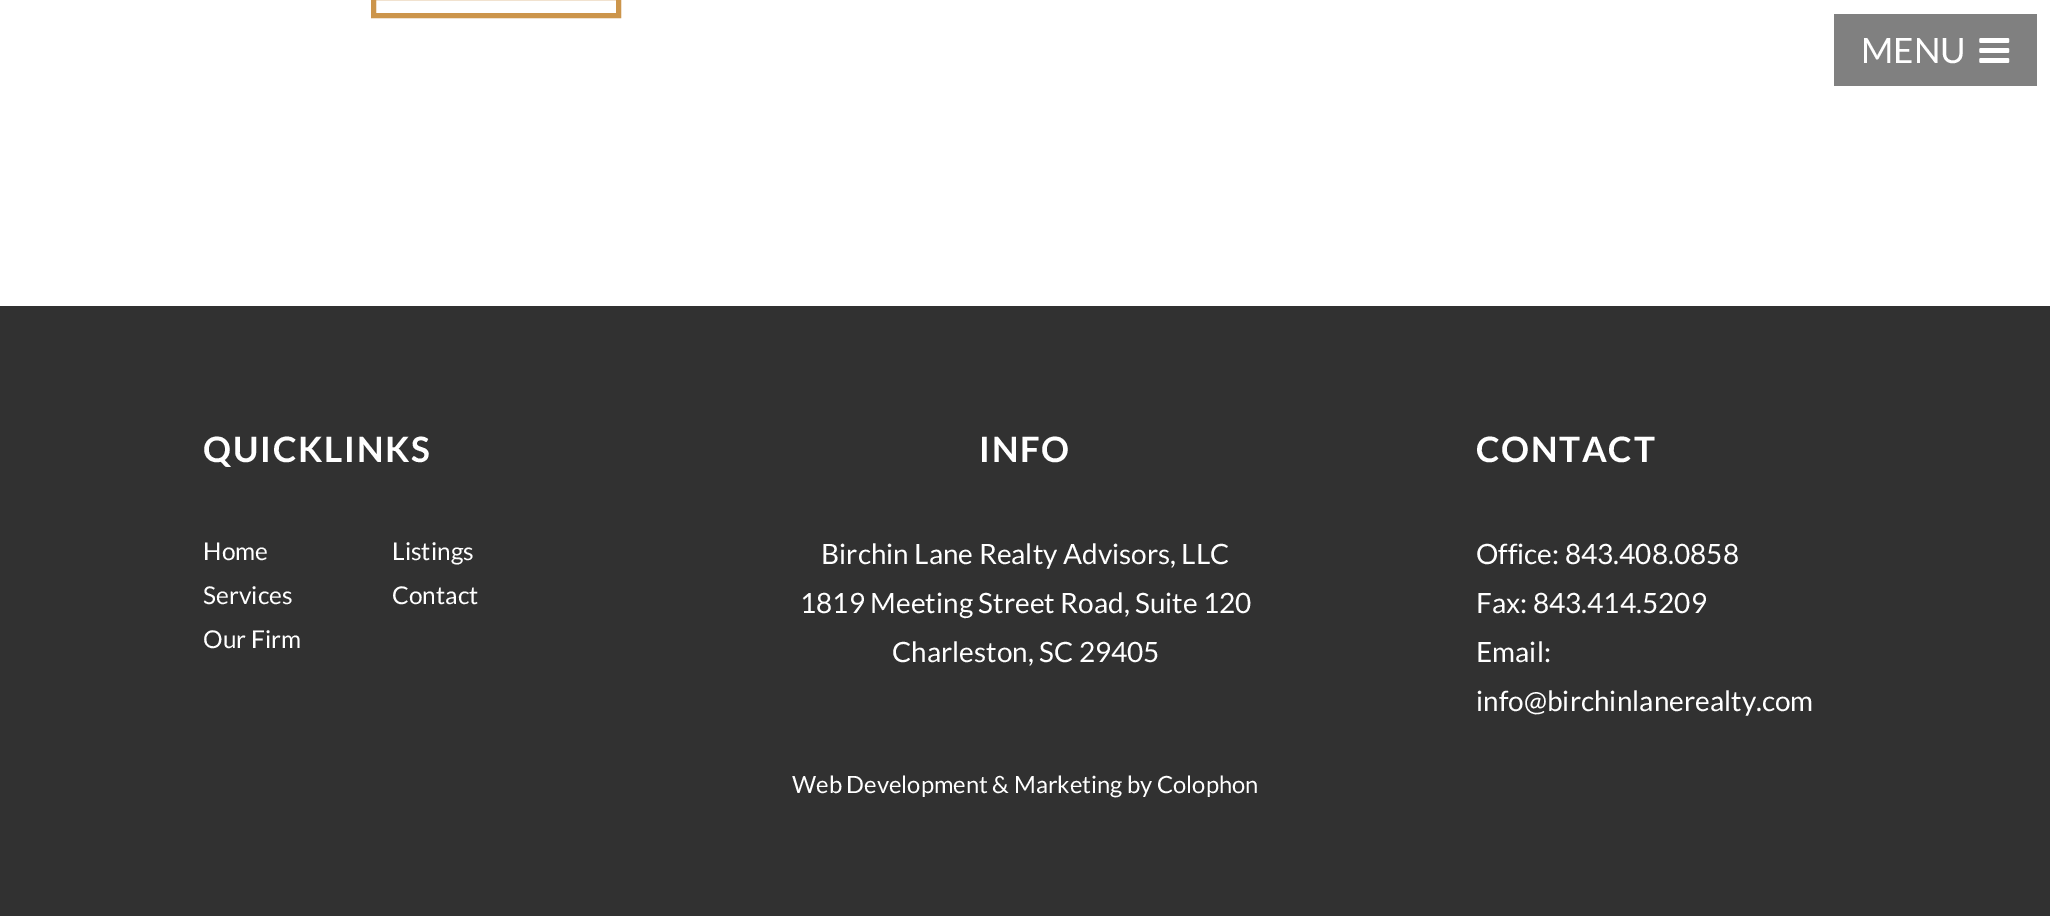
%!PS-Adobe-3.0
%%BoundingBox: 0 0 2050 916
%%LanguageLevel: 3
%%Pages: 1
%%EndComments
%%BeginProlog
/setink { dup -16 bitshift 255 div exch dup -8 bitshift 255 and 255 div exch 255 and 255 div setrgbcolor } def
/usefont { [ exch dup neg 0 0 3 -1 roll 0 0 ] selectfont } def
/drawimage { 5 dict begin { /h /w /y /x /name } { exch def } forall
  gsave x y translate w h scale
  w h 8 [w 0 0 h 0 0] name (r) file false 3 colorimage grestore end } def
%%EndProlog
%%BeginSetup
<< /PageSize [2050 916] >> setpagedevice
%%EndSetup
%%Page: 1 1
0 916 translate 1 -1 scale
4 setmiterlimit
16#313131 setink
0 0 2050 916 rectfill
16#FFFFFF setink
0 0 2050 306 rectfill
16#CC954B setink
5 setlinewidth
373.5 -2.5 245 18 rectstroke
16#808080 setink
1834 14 203 72 rectfill
/Lato-Regular 35 usefont
16#FFFFFF setink
1861 63 moveto (MENU) show
(img1.raw) 1979 38 31 25 drawimage
/Lato-Bold 35 usefont
203 462 moveto 1.75 0 (QUICKLINKS) ashow
/Lato-Regular 24.5 usefont
[
    [(Home) 203 560]
    [(Services) 203 604]
    [(Our Firm) 203 648]
    [(Listings) 392 560]
    [(Contact) 392 604]
] { aload pop moveto show } forall
/Lato-Bold 35 usefont
979 462 moveto 1.75 0 (INFO) ashow
/Lato-Regular 28 usefont
[
    [(Birchin Lane Realty Advisors, LLC) 821 564]
    [(1819 Meeting Street Road, Suite 120) 800 613]
    [(Charleston, SC 29405) 892 662]
] { aload pop moveto show } forall
/Lato-Bold 35 usefont
1476 462 moveto 1.75 0 (CONTACT) ashow
/Lato-Regular 28 usefont
[
    [(Office: 843.408.0858) 1476 564]
    [(Fax: 843.414.5209) 1476 613]
    [(Email:) 1476 662]
    [(info@birchinlanerealty.com) 1476 711]
] { aload pop moveto show } forall
/Lato-Regular 23.75 usefont
792 793 moveto (Web Development & Marketing by Colophon) show
showpage
%%EOF
